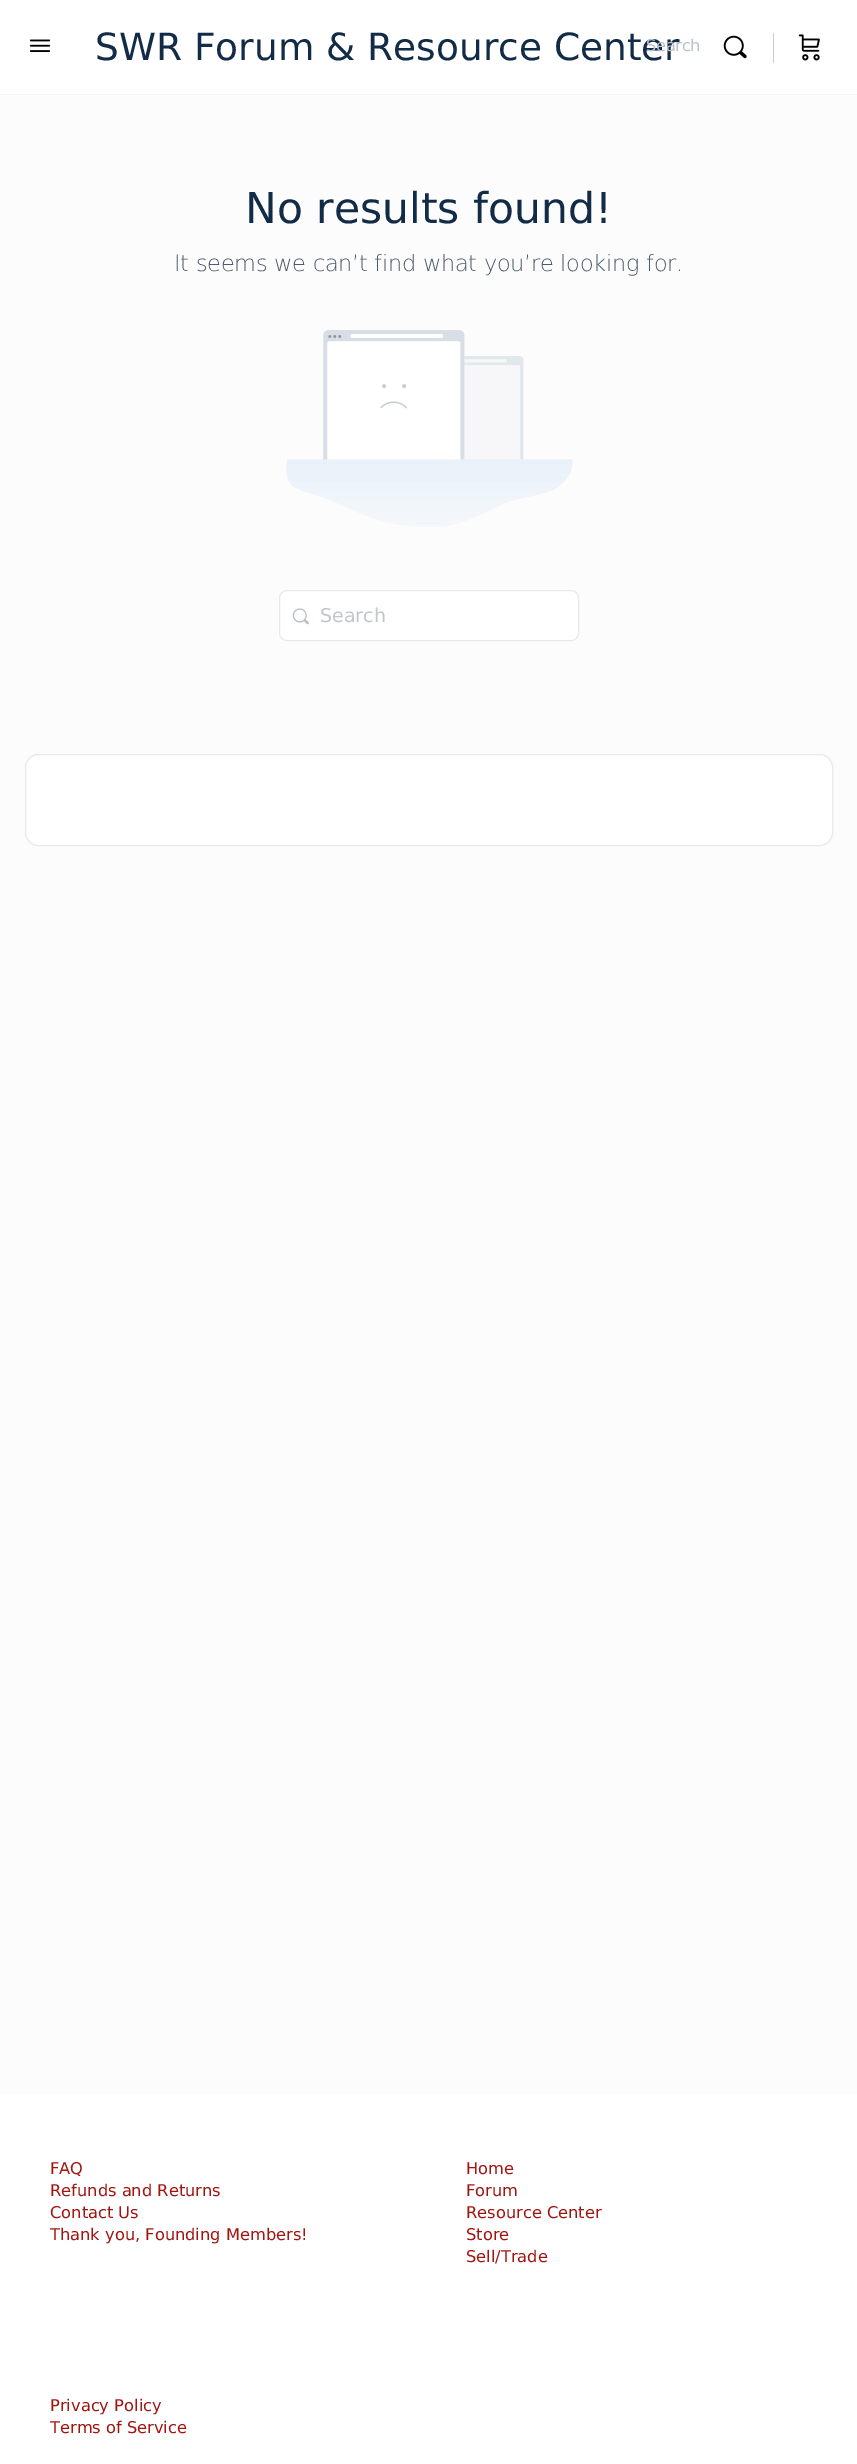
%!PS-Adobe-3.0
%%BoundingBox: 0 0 857 2464
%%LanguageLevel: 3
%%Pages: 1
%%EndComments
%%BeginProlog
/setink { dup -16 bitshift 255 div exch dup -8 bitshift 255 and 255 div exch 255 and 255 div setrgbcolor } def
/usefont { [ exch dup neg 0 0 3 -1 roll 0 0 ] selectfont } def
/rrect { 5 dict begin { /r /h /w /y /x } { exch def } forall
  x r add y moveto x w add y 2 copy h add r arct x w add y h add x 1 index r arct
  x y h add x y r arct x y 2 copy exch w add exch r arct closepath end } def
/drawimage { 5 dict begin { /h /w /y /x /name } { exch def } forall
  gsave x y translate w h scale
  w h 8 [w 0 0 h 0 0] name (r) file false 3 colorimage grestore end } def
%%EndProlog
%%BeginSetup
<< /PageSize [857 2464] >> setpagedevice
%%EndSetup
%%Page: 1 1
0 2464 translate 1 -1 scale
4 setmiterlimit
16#FCFCFC setink
0 0 857 2464 rectfill
16#F4F4F5 setink
0 94 moveto 0 95 lineto 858 95 lineto 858 1 lineto 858 94 lineto closepath fill
16#FFFFFF setink
0 0 857 94 rectfill
/DejaVuSans-Regular 37.5 usefont
16#122B46 setink
95 60 moveto (SWR Forum & Resource Center) show
(img1.raw) 30 39 20 13 drawimage
/DejaVuSans-Regular 16.25 usefont
16#BBC2CA setink
646 51 moveto -0.3 0 (Search) ashow
(img2.raw) 723 35 24 24 drawimage
16#CCCCCC setink
773 33 1 30 rectfill
(img3.raw) 798 34 22 27 drawimage
/DejaVuSans-Regular 42.5 usefont
16#122B46 setink
245 223 moveto (No results found!) show
/DejaVuSans-ExtraLight 22.5 usefont
16#4D5C6D setink
174 271 moveto -0.3 0 (It seems we can’t find what you’re looking for.) ashow
(img4.raw) 286 330 287 197 drawimage
16#FFFFFF setink
279.5 590.5 299 50 7.5 rrect gsave fill grestore
16#E7E9EC setink
stroke
(img5.raw) 292 608 17 17 drawimage
/DejaVuSans-Regular 19 usefont
16#C3C6C9 setink
320 622 moveto (Search) show
16#FFFFFF setink
25.5 754.5 807 91 12.5 rrect gsave fill grestore
16#E7E9EC setink
stroke
16#FFFFFF setink
0 2095 857 369 rectfill
/DejaVuSans-Regular 16.25 usefont
16#A11511 setink
[
    [(FAQ) 50 2174]
    [(Refunds and Returns) 50 2196]
    [(Contact Us) 50 2218]
    [(Thank you, Founding Members!) 50 2240]
    [(Home) 466 2174]
    [(Forum) 466 2196]
    [(Resource Center) 466 2218]
    [(Store) 466 2240]
    [(Sell/Trade) 466 2262]
    [(Privacy Policy) 50 2411]
    [(Terms of Service) 50 2433]
] { aload pop moveto show } forall
showpage
%%EOF
